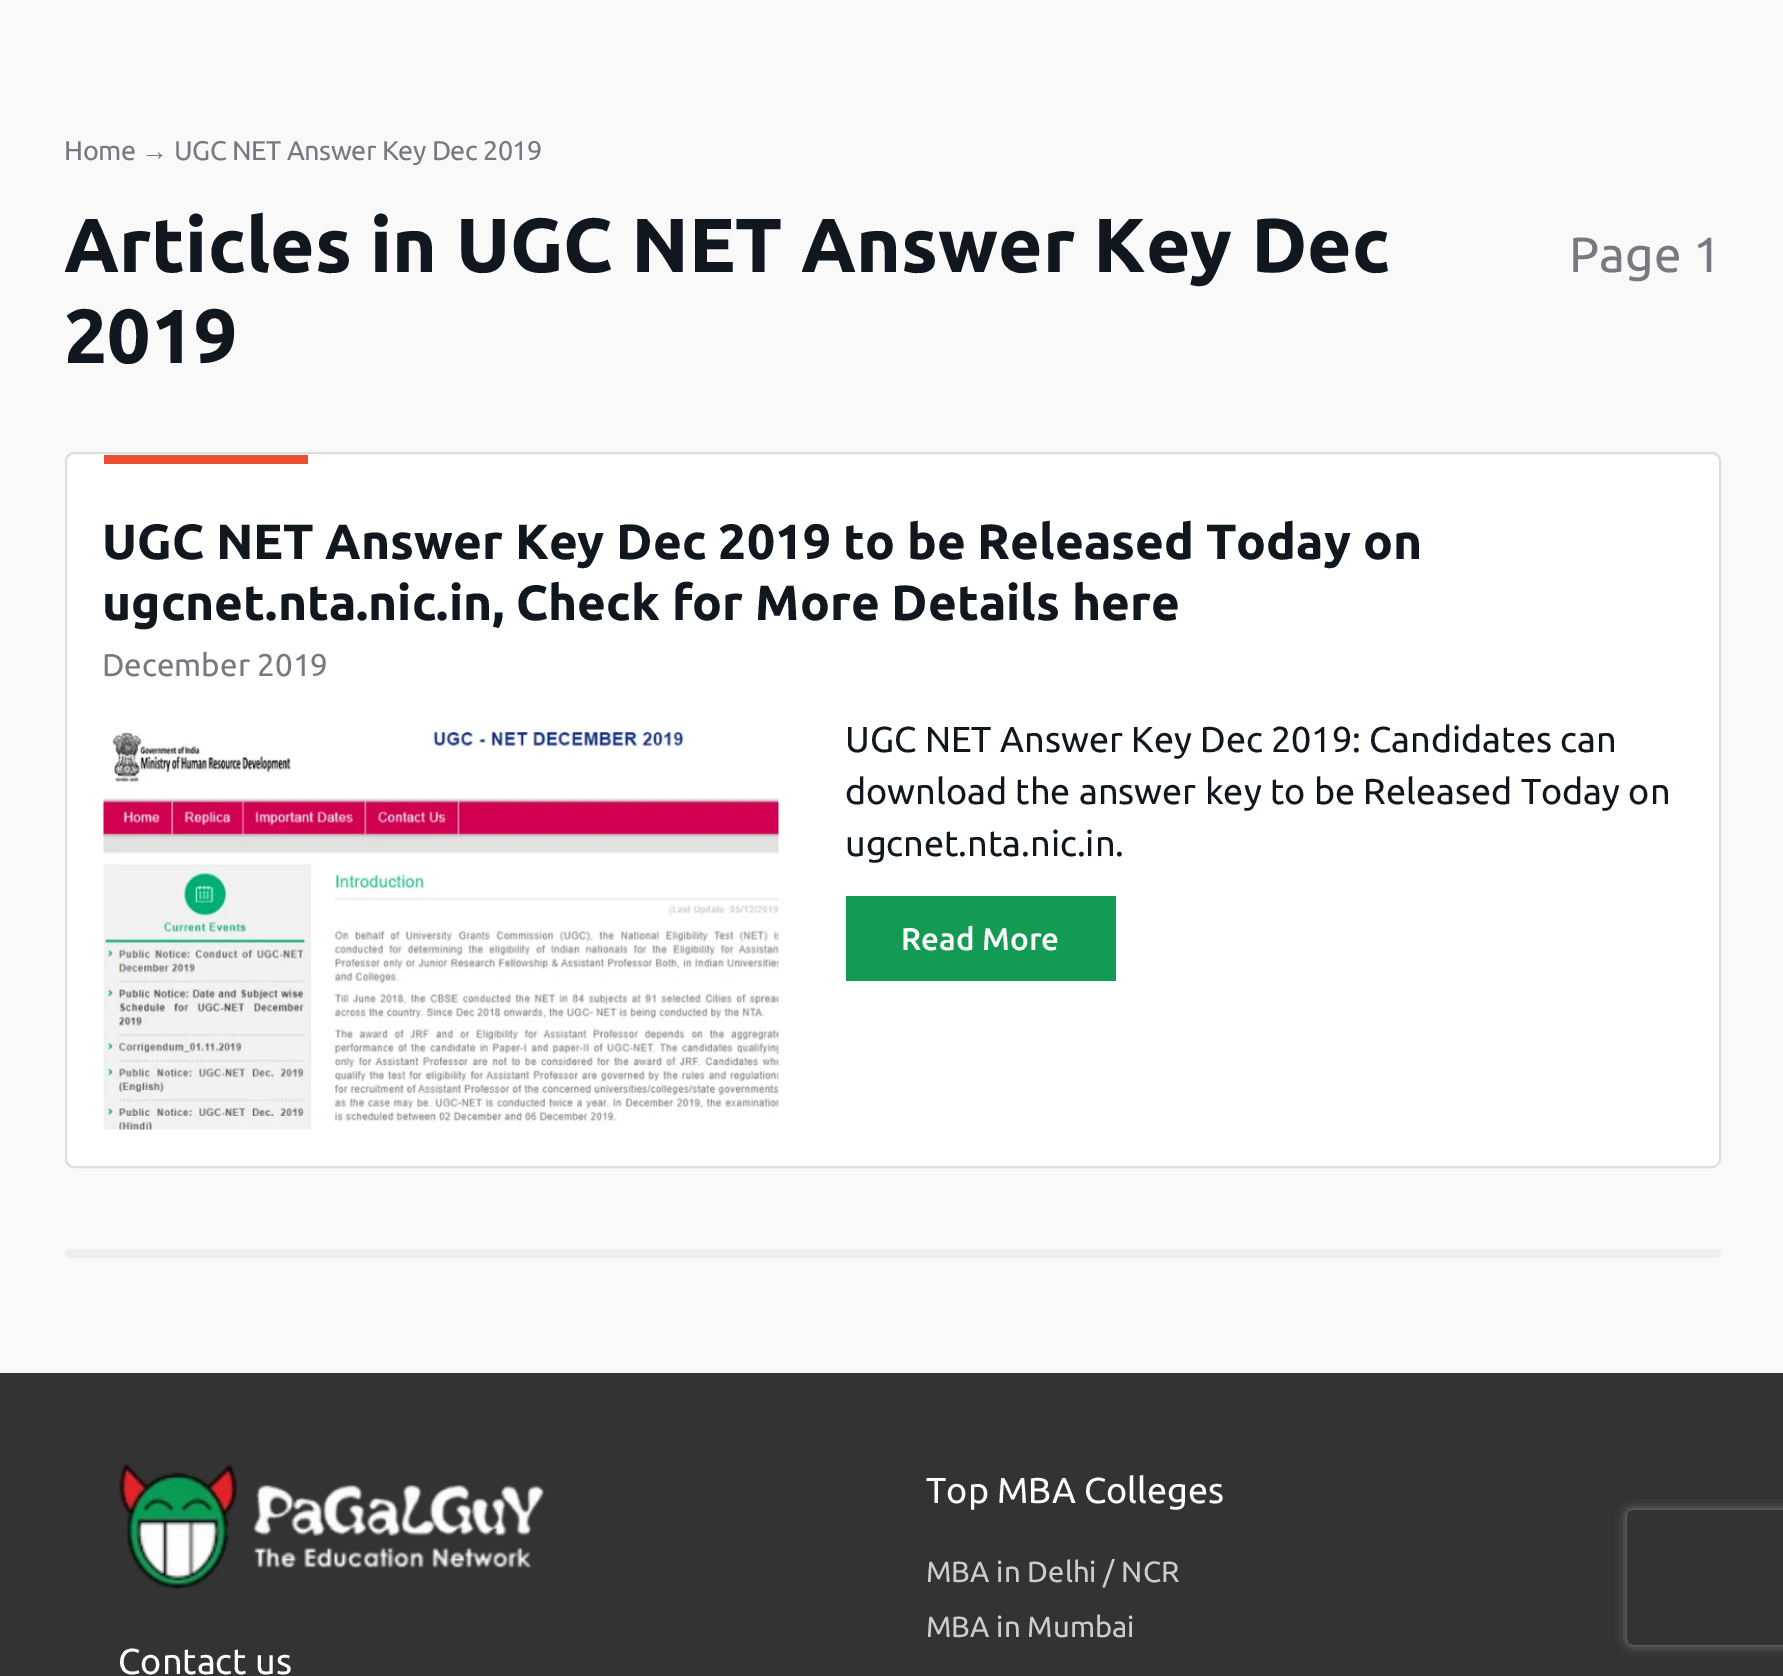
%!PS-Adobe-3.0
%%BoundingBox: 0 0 1783 1676
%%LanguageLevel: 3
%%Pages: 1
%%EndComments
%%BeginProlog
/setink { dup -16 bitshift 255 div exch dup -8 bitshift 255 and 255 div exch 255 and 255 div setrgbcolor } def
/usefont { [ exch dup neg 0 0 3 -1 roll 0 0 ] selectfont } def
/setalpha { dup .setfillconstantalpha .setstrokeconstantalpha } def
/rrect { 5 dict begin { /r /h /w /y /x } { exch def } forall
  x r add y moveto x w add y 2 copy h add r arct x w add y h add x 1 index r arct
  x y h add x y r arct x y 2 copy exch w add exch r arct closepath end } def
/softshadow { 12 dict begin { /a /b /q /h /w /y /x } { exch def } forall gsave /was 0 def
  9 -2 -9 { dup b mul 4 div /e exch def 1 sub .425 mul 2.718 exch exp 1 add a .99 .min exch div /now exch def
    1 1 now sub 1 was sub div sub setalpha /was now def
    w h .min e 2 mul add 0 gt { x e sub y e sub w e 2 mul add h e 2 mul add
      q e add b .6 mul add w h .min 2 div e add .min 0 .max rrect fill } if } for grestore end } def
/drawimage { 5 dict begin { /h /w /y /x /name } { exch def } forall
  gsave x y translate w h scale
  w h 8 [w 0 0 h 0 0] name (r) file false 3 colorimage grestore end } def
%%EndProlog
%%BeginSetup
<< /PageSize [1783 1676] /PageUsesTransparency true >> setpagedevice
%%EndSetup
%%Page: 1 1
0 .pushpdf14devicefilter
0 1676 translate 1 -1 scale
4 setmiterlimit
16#F9F9F9 setink
0 0 1783 1676 rectfill
/Ubuntu-Regular 27 usefont
16#767A80 setink
64 160 moveto -0.45 0 (Home) ashow
/LiberationSerif-Regular 27 usefont
141 160 moveto -0.45 0 (→) ashow
/Ubuntu-Regular 27 usefont
174 160 moveto -0.45 0 (UGC NET Answer Key Dec 2019) ashow
/Ubuntu-Bold 76.5 usefont
16#11171F setink
64 272 moveto (Articles in UGC NET Answer Key Dec) show
64 363 moveto (2019) show
/Ubuntu-Regular 49.5 usefont
16#767A80 setink
1569 272 moveto (Page 1) show
16#FFFFFF setink
66 453 1654 714 8 rrect gsave fill grestore
16#DEDEDE setink
2 setlinewidth
stroke
16#EC4E32 setink
104 455 204 9 rectfill
/Ubuntu-Bold 49.5 usefont
16#11171F setink
102 559 moveto (UGC NET Answer Key Dec 2019 to be Released Today on) show
102 620 moveto (ugcnet.nta.nic.in, Check for More Details here) show
/Ubuntu-Regular 31.5 usefont
16#767A80 setink
102 676 moveto (December 2019) show
(img1.raw) 103 729 676 401 drawimage
/Ubuntu-Regular 36 usefont
16#11171F setink
[
    [(UGC NET Answer Key Dec 2019: Candidates can) 845 752]
    [(download the answer key to be Released Today on) 845 804]
    [(ugcnet.nta.nic.in.) 845 856]
] { aload pop moveto show } forall
16#149B53 setink
846 896 270 85 rectfill
/Ubuntu-Medium 31.5 usefont
16#FFFFFF setink
901 950 moveto (Read More) show
16#EEEEEE setink
65 1249 1656 9 4.5 rrect fill
16#333333 setink
0 1373 1783 303 rectfill
/Ubuntu-Regular 36 usefont
16#FFFFFF setink
926 1503 moveto (Top MBA Colleges) show
/Ubuntu-Regular 29.25 usefont
16#CCCCCC setink
926 1582 moveto (MBA in Delhi / NCR) show
926 1637 moveto (MBA in Mumbai) show
(img2.raw) 119 1464 426 125 drawimage
/Ubuntu-Regular 36 usefont
16#FFFFFF setink
118 1674 moveto (Contact us) show
gsave
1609 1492 moveto 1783 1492 lineto 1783 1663 lineto 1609 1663 lineto closepath 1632 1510 moveto 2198 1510 lineto 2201 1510 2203 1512 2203 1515 curveto 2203 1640 lineto 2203 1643 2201 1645 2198 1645 curveto 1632 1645 lineto 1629 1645 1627 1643 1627 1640 curveto 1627 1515 lineto 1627 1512 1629 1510 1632 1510 curveto closepath eoclip newpath
16#808080 setink
1627 1510 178 135 5 5.5 1 softshadow
grestore
.poppdf14devicefilter showpage
%%EOF
